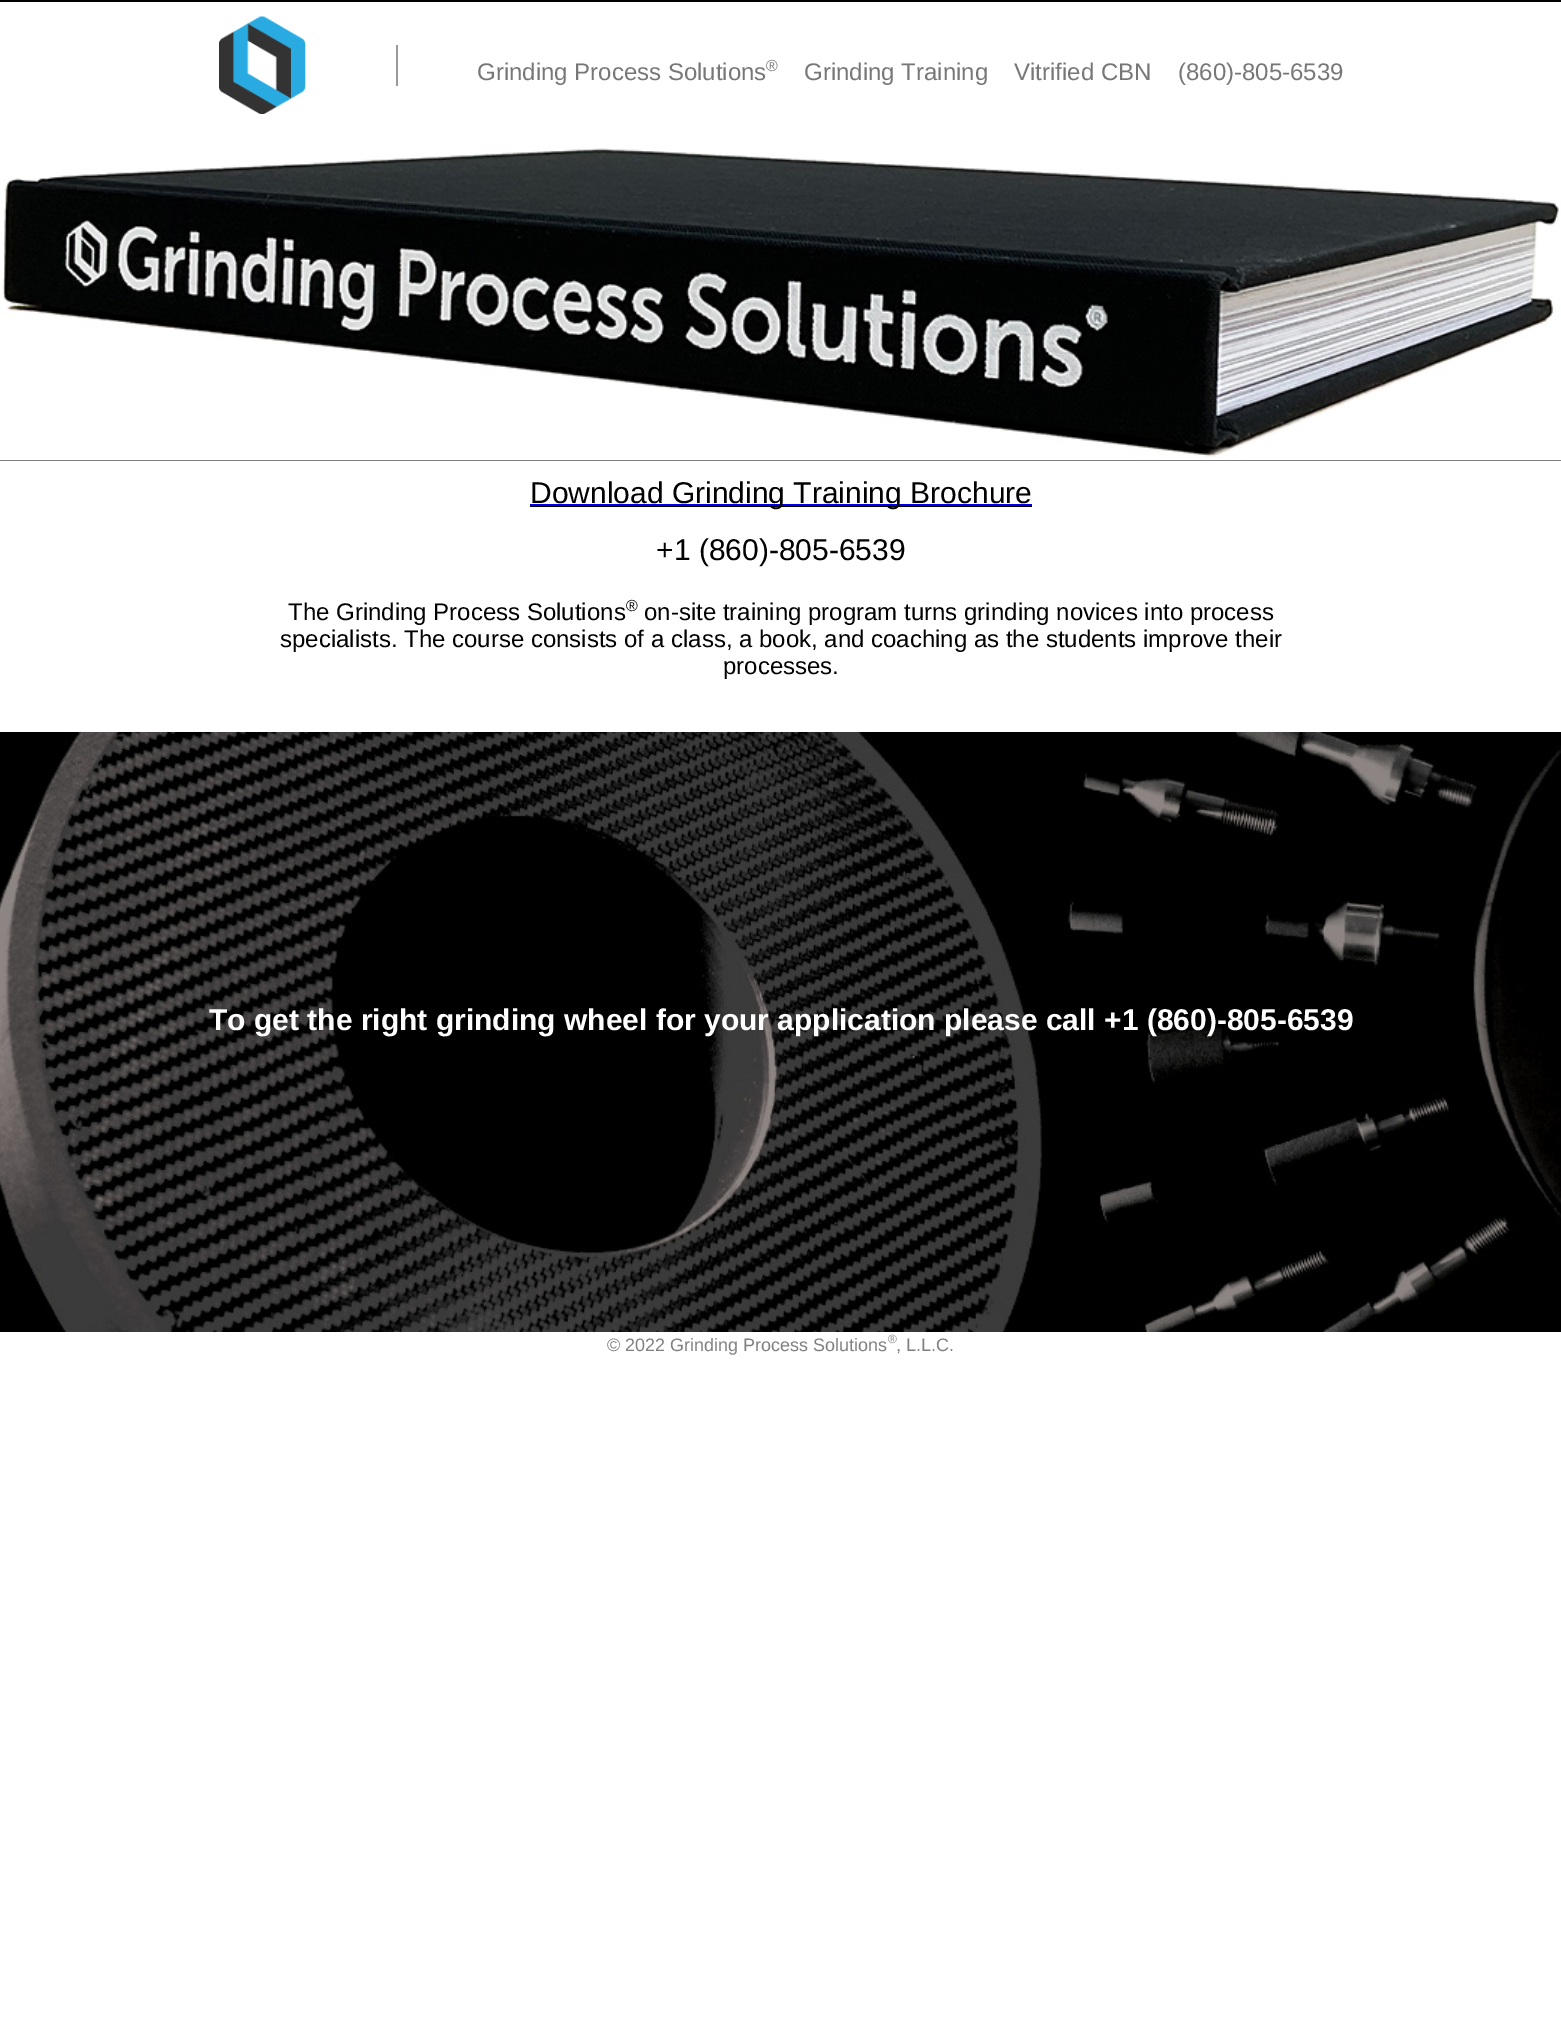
%!PS-Adobe-3.0
%%BoundingBox: 0 0 1561 2030
%%LanguageLevel: 3
%%Pages: 1
%%EndComments
%%BeginProlog
/setink { dup -16 bitshift 255 div exch dup -8 bitshift 255 and 255 div exch 255 and 255 div setrgbcolor } def
/usefont { [ exch dup neg 0 0 3 -1 roll 0 0 ] selectfont } def
/drawimage { 5 dict begin { /h /w /y /x /name } { exch def } forall
  gsave x y translate w h scale
  w h 8 [w 0 0 h 0 0] name (r) file false 3 colorimage grestore end } def
%%EndProlog
%%BeginSetup
<< /PageSize [1561 2030] >> setpagedevice
%%EndSetup
%%Page: 1 1
0 2030 translate 1 -1 scale
4 setmiterlimit
16#FFFFFF setink
0 0 1561 2030 rectfill
16#000000 setink
0 0 1561 2 rectfill
(img1.raw) 219 16 87 98 drawimage
16#999999 setink
396 45 2 41 rectfill
/LiberationSans-Regular 24 usefont
16#777777 setink
477 80 moveto (Grinding Process Solutions) show
/LiberationSans-Regular 16 usefont
766 71 moveto (®) show
/LiberationSans-Regular 24 usefont
[
    [(Grinding Training) 804 80]
    [(Vitrified CBN) 1014 80]
    [(\(860\)-805-6539) 1178 80]
] { aload pop moveto show } forall
16#000000 setink
0 460 1561 1 rectfill
(img2.raw) 0 144 1561 317 drawimage
530 506 502 1 rectfill
16#0000EE setink
530 504 502 2 rectfill
/LiberationSans-Regular 30 usefont
16#000000 setink
530 503 moveto (Download Grinding Training Brochure) show
656 560 moveto (+1 \(860\)-805-6539) show
/LiberationSans-Regular 24 usefont
288 620 moveto (The Grinding Process Solutions) show
/LiberationSans-Regular 16 usefont
626 611 moveto (®) show
/LiberationSans-Regular 24 usefont
[
    [(on-site training program turns grinding novices into process) 644 620]
    [(specialists. The course consists of a class, a book, and coaching as the students improve their) 280 647]
    [(processes.) 723 674]
] { aload pop moveto show } forall
(img3.raw) 0 732 1561 600 drawimage
/LiberationSans-Bold 30 usefont
16#FFFFFF setink
209 1030 moveto (To get the right grinding wheel for your application please call +1 \(860\)-805-6539) show
/LiberationSans-Regular 18 usefont
16#808080 setink
607 1351 moveto (© 2022 Grinding Process Solutions) show
/LiberationSans-Regular 12 usefont
888 1343 moveto (®) show
/LiberationSans-Regular 18 usefont
896 1351 moveto (, L.L.C.) show
showpage
%%EOF
